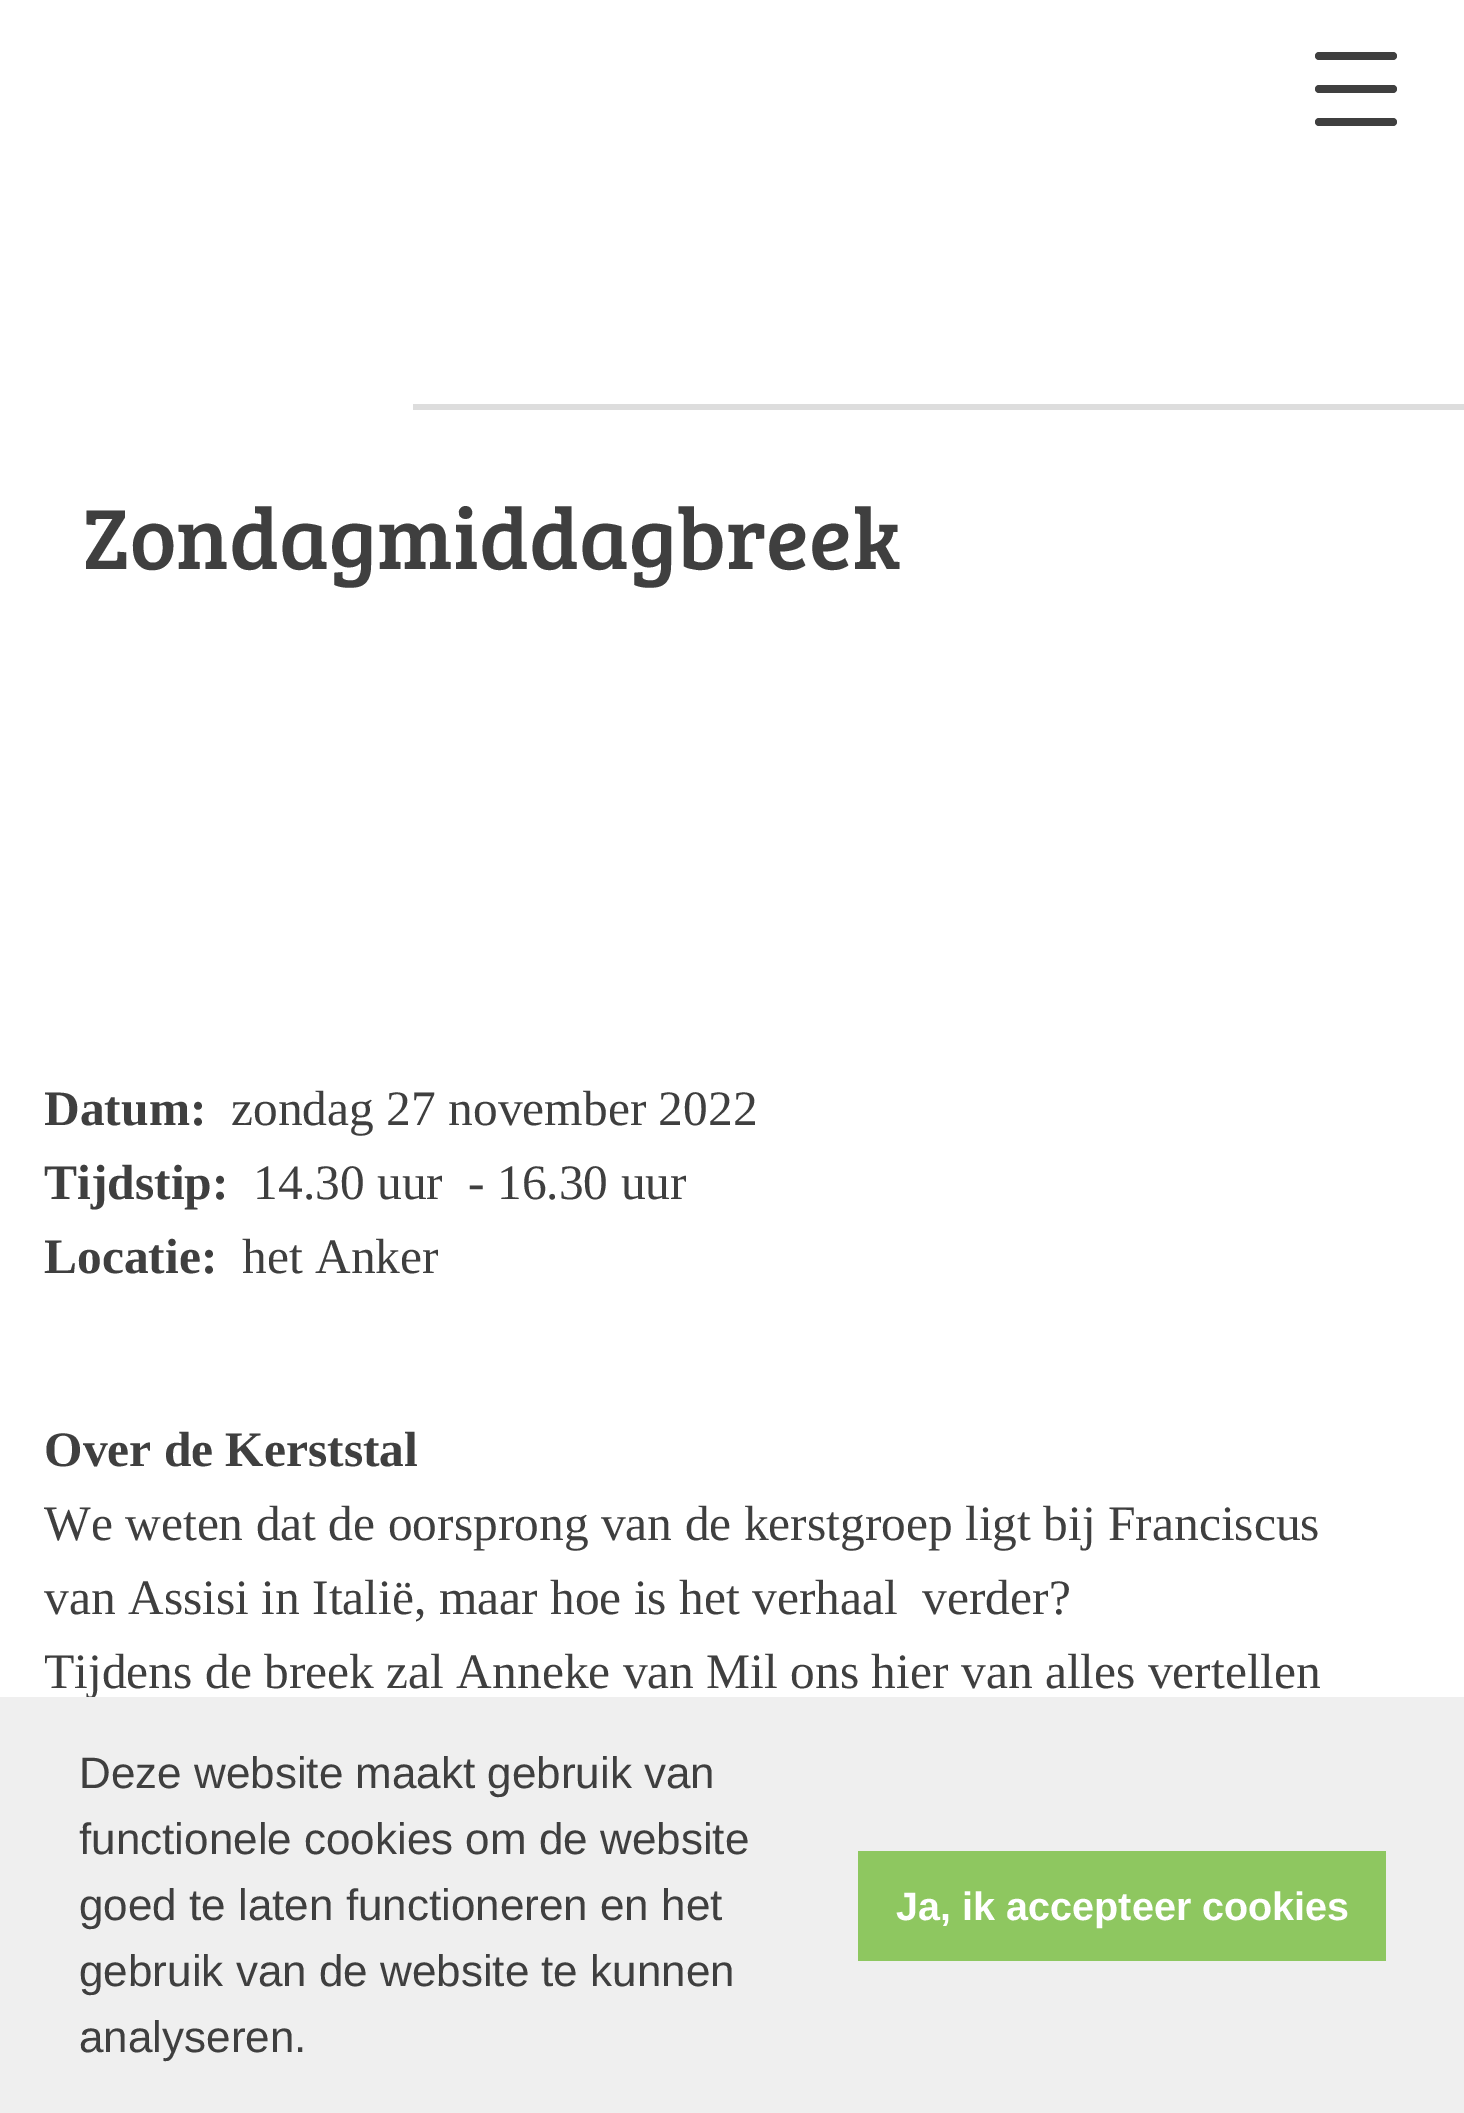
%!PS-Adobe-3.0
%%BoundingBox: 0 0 1464 2113
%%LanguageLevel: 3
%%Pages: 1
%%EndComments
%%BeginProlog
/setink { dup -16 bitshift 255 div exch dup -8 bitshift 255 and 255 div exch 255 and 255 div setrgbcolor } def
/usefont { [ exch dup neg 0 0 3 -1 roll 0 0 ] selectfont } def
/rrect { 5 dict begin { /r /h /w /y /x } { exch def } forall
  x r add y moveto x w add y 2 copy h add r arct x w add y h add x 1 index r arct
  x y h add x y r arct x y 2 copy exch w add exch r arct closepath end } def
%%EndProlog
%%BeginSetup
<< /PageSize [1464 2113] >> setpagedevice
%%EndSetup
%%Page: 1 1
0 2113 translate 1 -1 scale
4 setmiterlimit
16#FFFFFF setink
0 0 1464 2113 rectfill
16#3F3F3F setink
1315 52 82 8 4 rrect fill
1315 85 82 8 4 rrect fill
1315 118 82 8 4 rrect fill
16#DDDDDD setink
413 404 1051 6 rectfill
/BreeSerif-Regular 88 usefont
16#3F3F3F setink
83 569 moveto (Zondagmiddagbreek) show
/LiberationSerif-Bold 49.5 usefont
44 1125 moveto (Datum:) show
/LiberationSerif-Regular 49.5 usefont
231 1125 moveto (zondag 27 november 2022) show
/LiberationSerif-Bold 49.5 usefont
44 1199 moveto (Tijdstip:) show
/LiberationSerif-Regular 49.5 usefont
253 1199 moveto (14.30 uur) show
468 1199 moveto (- 16.30 uur) show
/LiberationSerif-Bold 49.5 usefont
44 1273 moveto (Locatie:) show
/LiberationSerif-Regular 49.5 usefont
242 1273 moveto (het Anker) show
/LiberationSerif-Bold 49.5 usefont
44 1466 moveto (Over de Kerststal) show
/LiberationSerif-Regular 49.5 usefont
[
    [(We weten dat de oorsprong van de kerstgroep ligt bij Franciscus) 44 1540]
    [(van Assisi in Italië, maar hoe is het verhaal  verder?) 44 1614]
    [(Tijdens de breek zal Anneke van Mil ons hier van alles vertellen) 44 1688]
] { aload pop moveto show } forall
16#EFEFEF setink
0 1697 1464 416 rectfill
/LiberationSans-Regular 44 usefont
16#3F3F3F setink
[
    [(Deze website maakt gebruik van) 79 1788]
    [(functionele cookies om de website) 79 1854]
    [(goed te laten functioneren en het) 79 1920]
    [(gebruik van de website te kunnen) 79 1986]
    [(analyseren.) 79 2052]
] { aload pop moveto show } forall
16#8EC760 setink
858 1851 528 110 rectfill
/LiberationSans-Bold 39.6 usefont
16#FFFFFF setink
896 1920 moveto (Ja, ik accepteer cookies) show
showpage
%%EOF
